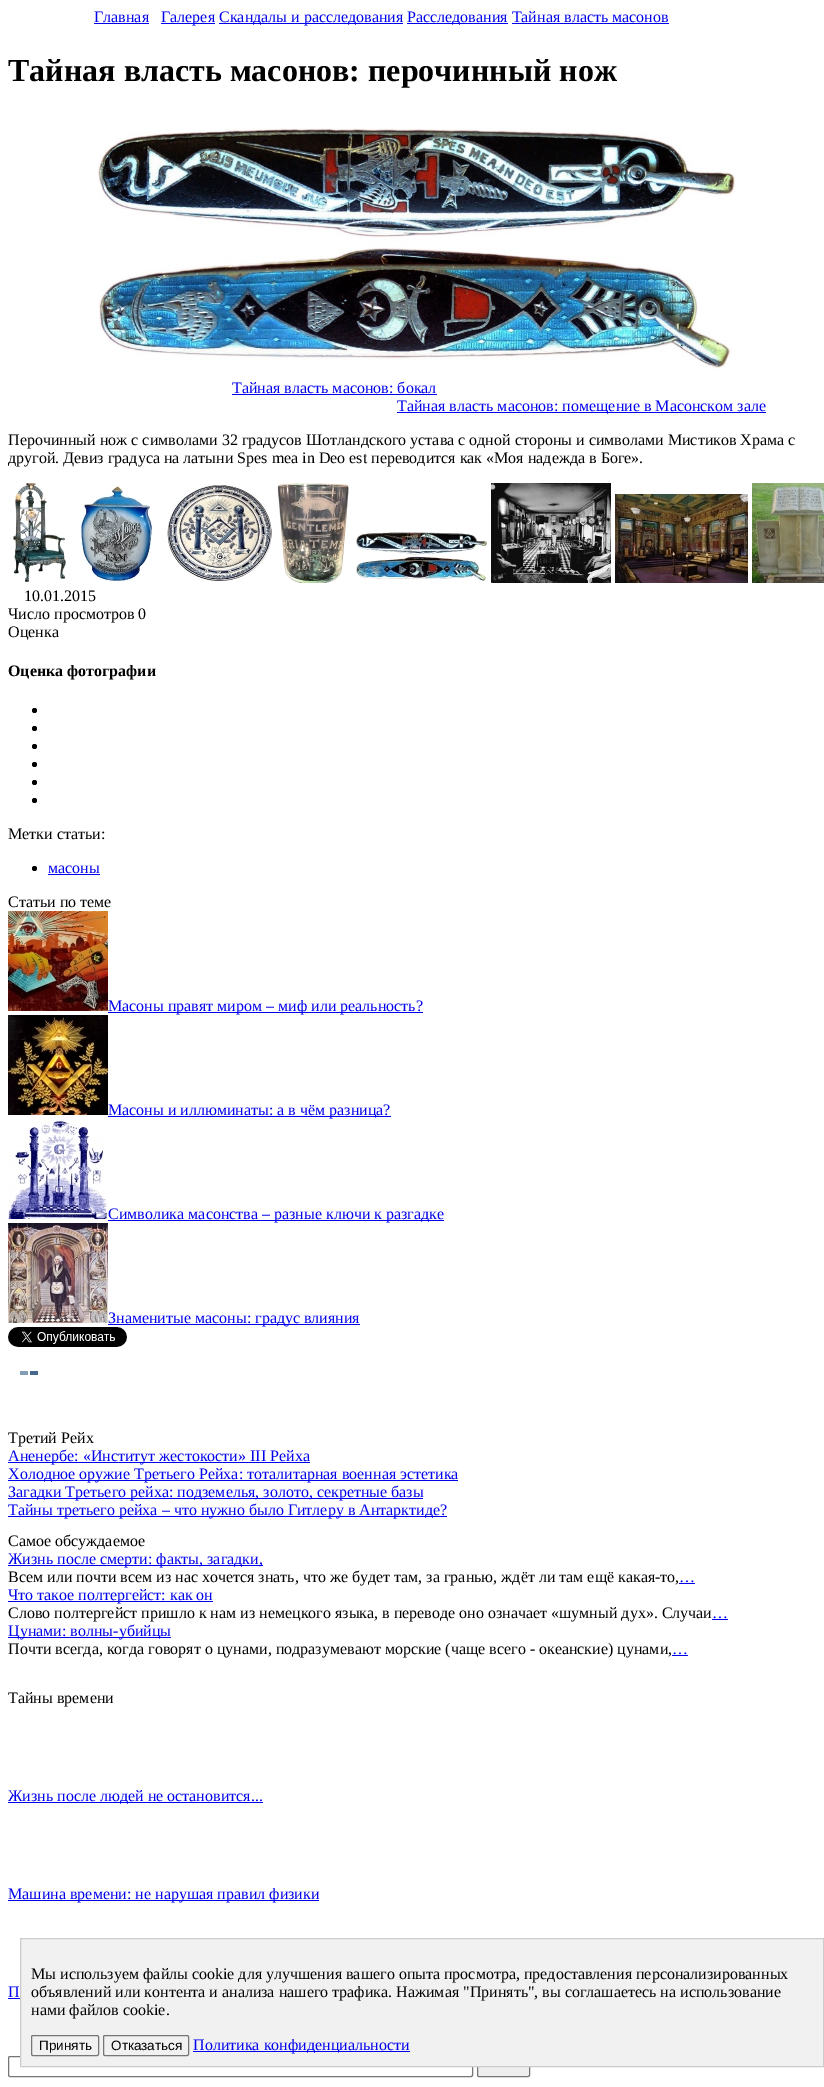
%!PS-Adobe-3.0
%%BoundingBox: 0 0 824 2087
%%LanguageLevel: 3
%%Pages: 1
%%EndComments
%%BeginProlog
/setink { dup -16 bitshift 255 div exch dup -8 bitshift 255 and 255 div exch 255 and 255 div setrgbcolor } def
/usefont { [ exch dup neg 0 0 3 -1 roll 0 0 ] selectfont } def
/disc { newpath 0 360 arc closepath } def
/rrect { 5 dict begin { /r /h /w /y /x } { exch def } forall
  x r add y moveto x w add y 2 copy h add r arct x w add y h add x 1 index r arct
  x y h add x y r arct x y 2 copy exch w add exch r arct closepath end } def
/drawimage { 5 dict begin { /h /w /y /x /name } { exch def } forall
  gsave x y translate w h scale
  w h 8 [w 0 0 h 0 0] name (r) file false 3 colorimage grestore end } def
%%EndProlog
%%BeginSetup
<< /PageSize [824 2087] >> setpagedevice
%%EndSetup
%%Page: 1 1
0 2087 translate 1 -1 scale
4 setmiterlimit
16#FFFFFF setink
0 0 824 2087 rectfill
/LiberationSerif-Regular 16 usefont
16#0000EE setink
94 22 moveto (Главная) show
94 23 55 1 rectfill
161 23 54 1 rectfill
161 22 moveto (Галерея) show
219 23 184 1 rectfill
219 22 moveto (Скандалы и расследования) show
407 23 101 1 rectfill
407 22 moveto (Расследования Тайная власть масонов) show
512 23 157 1 rectfill
/LiberationSerif-Bold 32 usefont
16#000000 setink
8 81 moveto (Тайная власть масонов: перочинный нож) show
(img1.raw) 98 128 639 242 drawimage
/LiberationSerif-Regular 16 usefont
16#0000EE setink
232 393 moveto (Тайная власть масонов: бокал) show
232 394 205 1 rectfill
397 412 369 1 rectfill
397 411 moveto (Тайная власть масонов: помещение в Масонском зале) show
16#000000 setink
8 445 moveto (Перочинный нож с символами 32 градусов Шотландского устава с одной стороны и символами Мистиков Храма с) show
8 463 moveto (другой. Девиз градуса на латыни Spes mea in Deo est переводится как «Моя надежда в Боге».) show
(img2.raw) 13 483 53 100 drawimage
(img3.raw) 80 485 73 98 drawimage
(img4.raw) 167 485 105 96 drawimage
(img5.raw) 277 483 72 100 drawimage
(img6.raw) 356 532 131 49 drawimage
(img7.raw) 491 483 120 100 drawimage
(img8.raw) 615 494 133 89 drawimage
(img9.raw) 752 483 72 100 drawimage
[
    [(10.01.2015) 24 601]
    [(Число просмотров 0) 8 619]
    [(Оценка) 8 637]
] { aload pop moveto show } forall
/LiberationSerif-Bold 16 usefont
8 676 moveto (Оценка фотографии) show
34.5 710.5 2.5 disc fill
34.5 728.5 2.5 disc fill
34.5 746.5 2.5 disc fill
34.5 764.5 2.5 disc fill
34.5 782.5 2.5 disc fill
34.5 800.5 2.5 disc fill
/LiberationSerif-Regular 16 usefont
8 839 moveto (Метки статьи:) show
34.5 868.5 2.5 disc fill
16#0000EE setink
48 873 moveto (масоны) show
48 874 52 1 rectfill
16#000000 setink
8 907 moveto (Статьи по теме) show
(img10.raw) 8 911 100 100 drawimage
16#0000EE setink
108 1012 315 1 rectfill
108 1011 moveto (Масоны правят миром – миф или реальность?) show
(img11.raw) 8 1015 100 100 drawimage
108 1116 283 1 rectfill
108 1115 moveto (Масоны и иллюминаты: а в чём разница?) show
(img12.raw) 8 1119 100 100 drawimage
108 1220 336 1 rectfill
108 1219 moveto (Символика масонства – разные ключи к разгадке) show
(img13.raw) 8 1223 100 100 drawimage
108 1324 252 1 rectfill
108 1323 moveto (Знаменитые масоны: градус влияния) show
(img14.raw) 8 1327 119 20 drawimage
(img15.raw) 20 1371 18 4 drawimage
16#000000 setink
8 1443 moveto (Третий Рейх) show
16#0000EE setink
8 1462 302 1 rectfill
8 1461 moveto (Аненербе: «Институт жестокости» III Рейха) show
8 1480 450 1 rectfill
8 1479 moveto (Холодное оружие Третьего Рейха: тоталитарная военная эстетика) show
8 1498 415 1 rectfill
8 1497 moveto (Загадки Третьего рейха: подземелья, золото, секретные базы) show
8 1516 439 1 rectfill
8 1515 moveto (Тайны третьего рейха – что нужно было Гитлеру в Антарктиде?) show
16#000000 setink
8 1546 moveto (Самое обсуждаемое) show
16#0000EE setink
8 1565 255 1 rectfill
8 1564 moveto (Жизнь после смерти: факты, загадки,) show
16#000000 setink
8 1582 moveto (Всем или почти всем из нас хочется знать, что же будет там, за гранью, ждёт ли там ещё какая-то,) show
16#0000EE setink
679 1582 moveto (…) show
679 1583 16 1 rectfill
8 1601 205 1 rectfill
8 1600 moveto (Что такое полтергейст: как он) show
16#000000 setink
8 1618 moveto (Слово полтергейст пришло к нам из немецкого языка, в переводе оно означает «шумный дух». Случаи) show
16#0000EE setink
712 1618 moveto (…) show
712 1619 16 1 rectfill
8 1637 163 1 rectfill
8 1636 moveto (Цунами: волны-убийцы) show
16#000000 setink
8 1654 moveto (Почти всегда, когда говорят о цунами, подразумевают морские \(чаще всего - океанские\) цунами,) show
16#0000EE setink
672 1654 moveto (…) show
672 1655 16 1 rectfill
16#000000 setink
8 1703 moveto (Тайны времени) show
16#0000EE setink
8 1802 255 1 rectfill
8 1801 moveto (Жизнь после людей не остановится...) show
8 1900 311 1 rectfill
8 1899 moveto (Машина времени: не нарушая правил физики) show
8 1997 moveto (П) show
8 1998 12 1 rectfill
16#767676 setink
8.5 2056.5 464 20 1.5 rrect stroke
16#EFEFEF setink
477.5 2056.5 52 20 1.5 rrect gsave fill grestore
16#767676 setink
stroke
16#F1F1F1 setink
20.5 1938.5 moveto 823.5 1938.5 lineto 823.5 2066.5 lineto 20.5 2066.5 lineto closepath gsave fill grestore
16#CCCCCC setink
stroke
16#000000 setink
[
    [(Мы используем файлы cookie для улучшения вашего опыта просмотра, предоставления персонализированных) 31 1979]
    [(объявлений или контента и анализа нашего трафика. Нажимая "Принять", вы соглашаетесь на использование) 31 1997]
    [(нами файлов cookie.) 31 2015]
] { aload pop moveto show } forall
16#767676 setink
31.5 2035.5 67 20 1.5 rrect stroke
/LiberationSans-Regular 13.5 usefont
16#000000 setink
39 2050 moveto (Принять) show
16#767676 setink
103.5 2035.5 85 20 1.5 rrect stroke
16#000000 setink
111 2050 moveto (Отказаться) show
16#0000EE setink
193 2051 217 1 rectfill
/LiberationSerif-Regular 16 usefont
193 2050 moveto (Политика конфиденциальности) show
showpage
%%EOF
